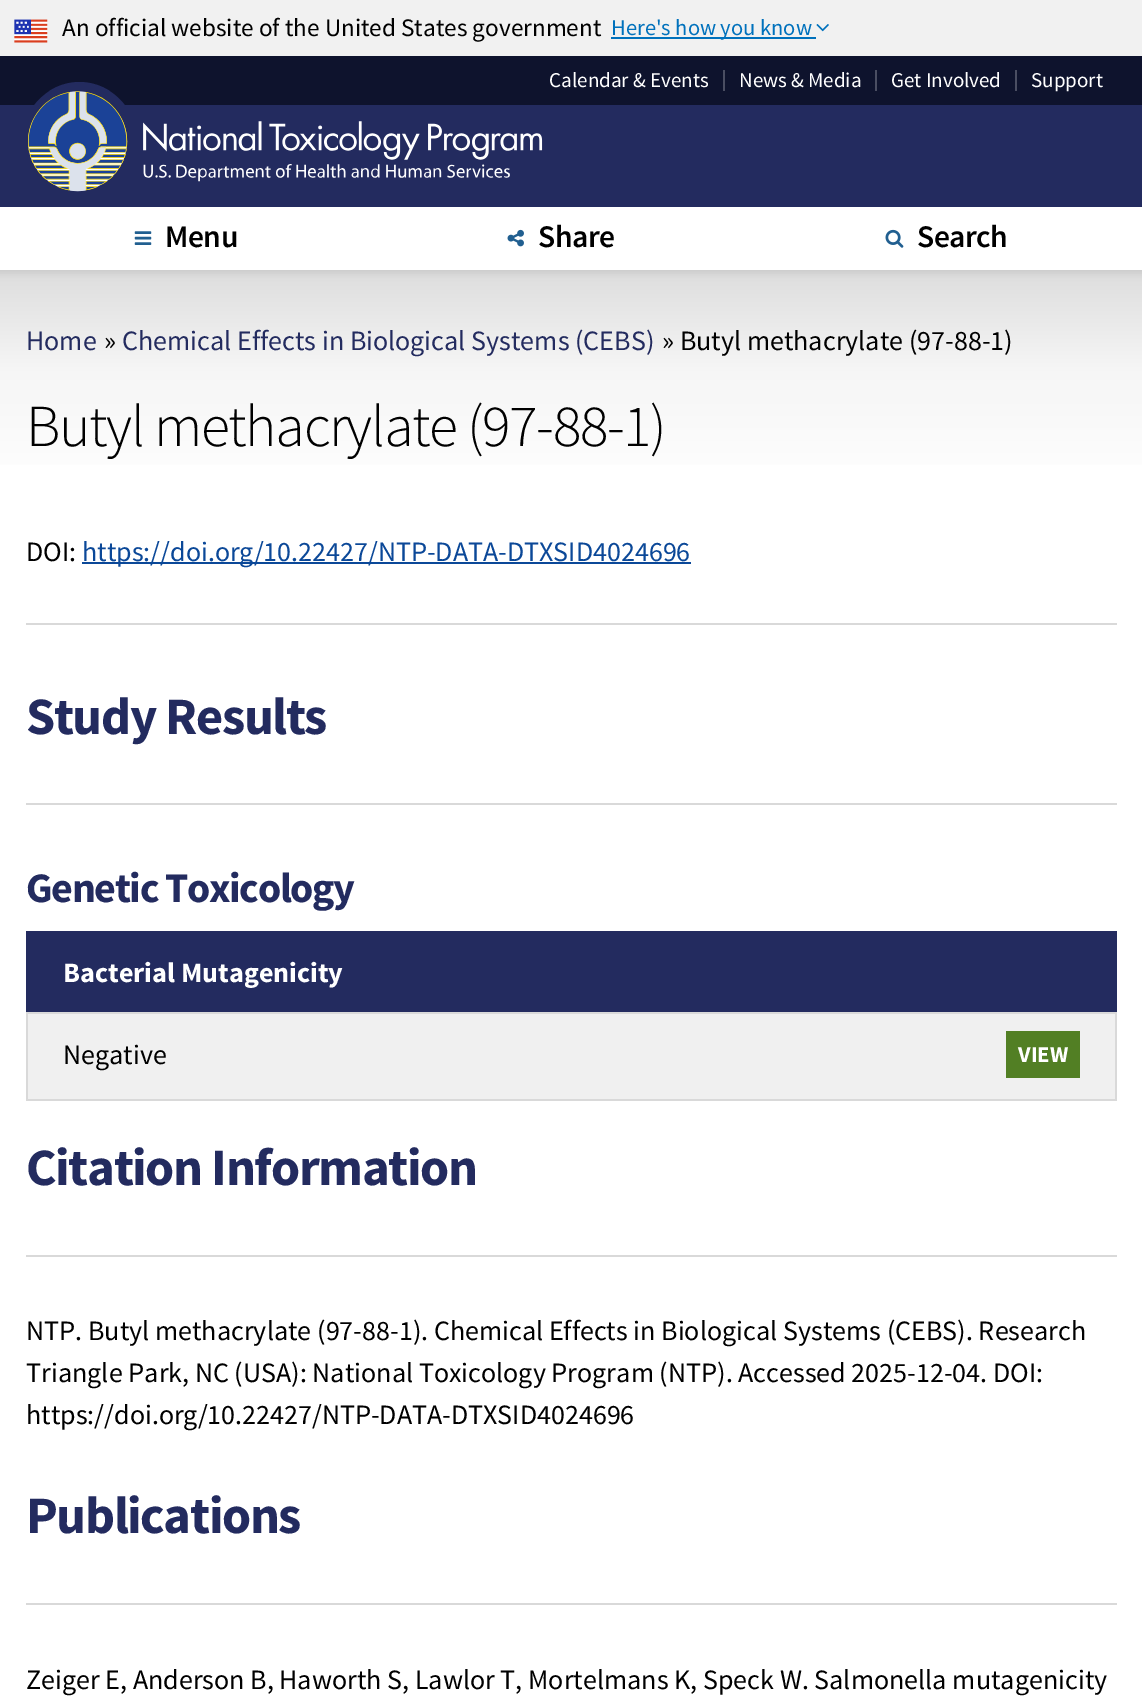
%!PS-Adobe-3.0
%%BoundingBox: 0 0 1142 1702
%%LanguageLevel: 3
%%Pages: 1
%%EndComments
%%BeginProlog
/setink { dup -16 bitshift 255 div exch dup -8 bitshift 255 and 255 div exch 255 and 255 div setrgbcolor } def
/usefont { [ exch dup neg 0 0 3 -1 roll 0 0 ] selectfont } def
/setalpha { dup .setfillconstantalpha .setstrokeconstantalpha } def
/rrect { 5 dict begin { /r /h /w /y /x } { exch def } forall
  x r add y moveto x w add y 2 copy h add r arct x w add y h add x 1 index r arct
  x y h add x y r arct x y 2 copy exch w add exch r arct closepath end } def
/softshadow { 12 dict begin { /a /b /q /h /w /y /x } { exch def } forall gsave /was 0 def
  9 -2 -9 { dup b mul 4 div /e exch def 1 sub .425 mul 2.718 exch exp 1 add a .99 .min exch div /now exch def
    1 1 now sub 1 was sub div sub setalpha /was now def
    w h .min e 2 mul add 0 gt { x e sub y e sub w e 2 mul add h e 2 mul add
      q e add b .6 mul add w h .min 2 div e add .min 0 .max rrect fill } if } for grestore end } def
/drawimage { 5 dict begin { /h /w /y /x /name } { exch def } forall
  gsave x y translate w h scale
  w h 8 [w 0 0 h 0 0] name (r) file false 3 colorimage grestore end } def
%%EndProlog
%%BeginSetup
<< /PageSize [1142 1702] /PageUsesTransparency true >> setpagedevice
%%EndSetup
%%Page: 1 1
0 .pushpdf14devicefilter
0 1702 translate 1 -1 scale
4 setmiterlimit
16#FFFFFF setink
0 0 1142 1702 rectfill
gsave 0 270 moveto 1142 270 lineto 1142 465 lineto 0 465 lineto closepath clip newpath
<< /ShadingType 2 /ColorSpace /DeviceRGB /Coords [571 270 571 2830] /Extend [true true] /Function << /FunctionType 3 /Domain [0 1] /Functions [<< /FunctionType 2 /Domain [0 1] /C0 [0.867 0.867 0.867] /C1 [0.965 0.965 0.965] /N 1 >> << /FunctionType 2 /Domain [0 1] /C0 [0.965 0.965 0.965] /C1 [1 1 1] /N 1 >> << /FunctionType 2 /Domain [0 1] /C0 [1 1 1] /C1 [1 1 1] /N 1 >>] /Bounds [0.04 0.09] /Encode [0 1 0 1 0 1] >> >> shfill grestore
16#000000 setink
-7 -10 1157 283 0 3.5 0.08 softshadow
16#F1F1F1 setink
0 0 1142 56 rectfill
(img1.raw) 14 19 34 24 drawimage
/SourceSansPro-Regular 25.2 usefont
16#000000 setink
62 36 moveto (An official website of the United States government) show
16#0071BC setink
611 37 205 2 rectfill
/SourceSansPro-Regular 22.5 usefont
611 35 moveto (Here's how you know) show
(img2.raw) 816 24 13 8 drawimage
16#0E132D setink
0 56 1142 49 rectfill
/SourceSansPro-Regular 21 usefont
16#FFFFFF setink
549 87 moveto (Calendar & Events) show
16#4A4E62 setink
723 70 2 21 rectfill
16#FFFFFF setink
739 87 moveto (News & Media) show
16#4A4E62 setink
875 70 2 21 rectfill
16#FFFFFF setink
891 87 moveto (Get Involved) show
16#4A4E62 setink
1015 70 2 21 rectfill
16#FFFFFF setink
1031 87 moveto (Support) show
16#232B5F setink
0 105 1142 102 rectfill
79.5 82 moveto 113 82 140 112 140 149.5 curveto 140 187 113 217 79.5 217 curveto 46 217 19 187 19 149.5 curveto 19 112 46 82 79.5 82 curveto closepath fill
(img3.raw) 28 91 515 101 drawimage
16#FFFFFF setink
0 207 1142 63 rectfill
(img4.raw) 134 231 18 14 drawimage
/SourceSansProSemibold-SemiBold 31.5 usefont
16#000000 setink
165 247 moveto -0.5 0 (Menu) ashow
(img5.raw) 507 229 17 18 drawimage
538 247 moveto -0.5 0 (Share) ashow
(img6.raw) 885 229 19 19 drawimage
917 247 moveto -0.5 0 (Search) ashow
/SourceSansPro-Regular 28 usefont
16#232B5F setink
26 350 moveto (Home) show
16#000000 setink
104 350 moveto (») show
16#232B5F setink
122 350 moveto (Chemical Effects in Biological Systems \(CEBS\)) show
16#000000 setink
662 350 moveto (» Butyl methacrylate \(97-88-1\)) show
/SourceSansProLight-Light 59.5 usefont
26 446 moveto -1.4 0 (Butyl methacrylate \(97-88-1\)) ashow
/SourceSansPro-Regular 28 usefont
26 561 moveto (DOI:) show
16#0B4898 setink
82 562 609 2 rectfill
82 561 moveto (https://doi.org/10.22427/NTP-DATA-DTXSID4024696) show
16#D9D9D9 setink
26 623 1091 2 rectfill
/SourceSansPro-Bold 52.5 usefont
16#232B5F setink
26 734 moveto -1.4 0 (Study Results) ashow
16#D9D9D9 setink
26 803 1091 2 rectfill
/SourceSansPro-Bold 42 usefont
16#232B5F setink
26 902 moveto -1.4 0 (Genetic Toxicology) ashow
[
    [26 1010 1091 2 16#232B5F]
    [26 931 2 81 16#232B5F]
    [28 931 1089 79 16#232B5F]
] { aload pop setink rectfill } forall
/SourceSansPro-Bold 28 usefont
16#FFFFFF setink
63 982 moveto (Bacterial Mutagenicity) show
[
    [28 1014 1087 85 16#F0F0F0]
    [26 1012 1091 2 16#D9D9D9]
    [1115 1012 2 89 16#D9D9D9]
    [26 1099 1091 2 16#D9D9D9]
    [26 1012 2 89 16#D9D9D9]
] { aload pop setink rectfill } forall
/SourceSansPro-Regular 28 usefont
16#000000 setink
63 1064 moveto (Negative) show
16#527F24 setink
1006 1031 74 47 rectfill
/SourceSansPro-Bold 22.5 usefont
16#FFFFFF setink
1018 1062 moveto (VIEW) show
/SourceSansPro-Bold 52.5 usefont
16#232B5F setink
26 1185 moveto -1.4 0 (Citation Information) ashow
16#D9D9D9 setink
26 1255 1091 2 rectfill
/SourceSansPro-Regular 28 usefont
16#000000 setink
[
    [(NTP. Butyl methacrylate \(97-88-1\). Chemical Effects in Biological Systems \(CEBS\). Research) 26 1340]
    [(Triangle Park, NC \(USA\): National Toxicology Program \(NTP\). Accessed 2025-12-04. DOI:) 26 1382]
    [(https://doi.org/10.22427/NTP-DATA-DTXSID4024696) 26 1424]
] { aload pop moveto show } forall
/SourceSansPro-Bold 52.5 usefont
16#232B5F setink
26 1533 moveto -1.4 0 (Publications) ashow
16#D9D9D9 setink
26 1603 1091 2 rectfill
/SourceSansPro-Regular 28 usefont
16#000000 setink
26 1689 moveto (Zeiger E, Anderson B, Haworth S, Lawlor T, Mortelmans K, Speck W. Salmonella mutagenicity) show
.poppdf14devicefilter showpage
%%EOF
